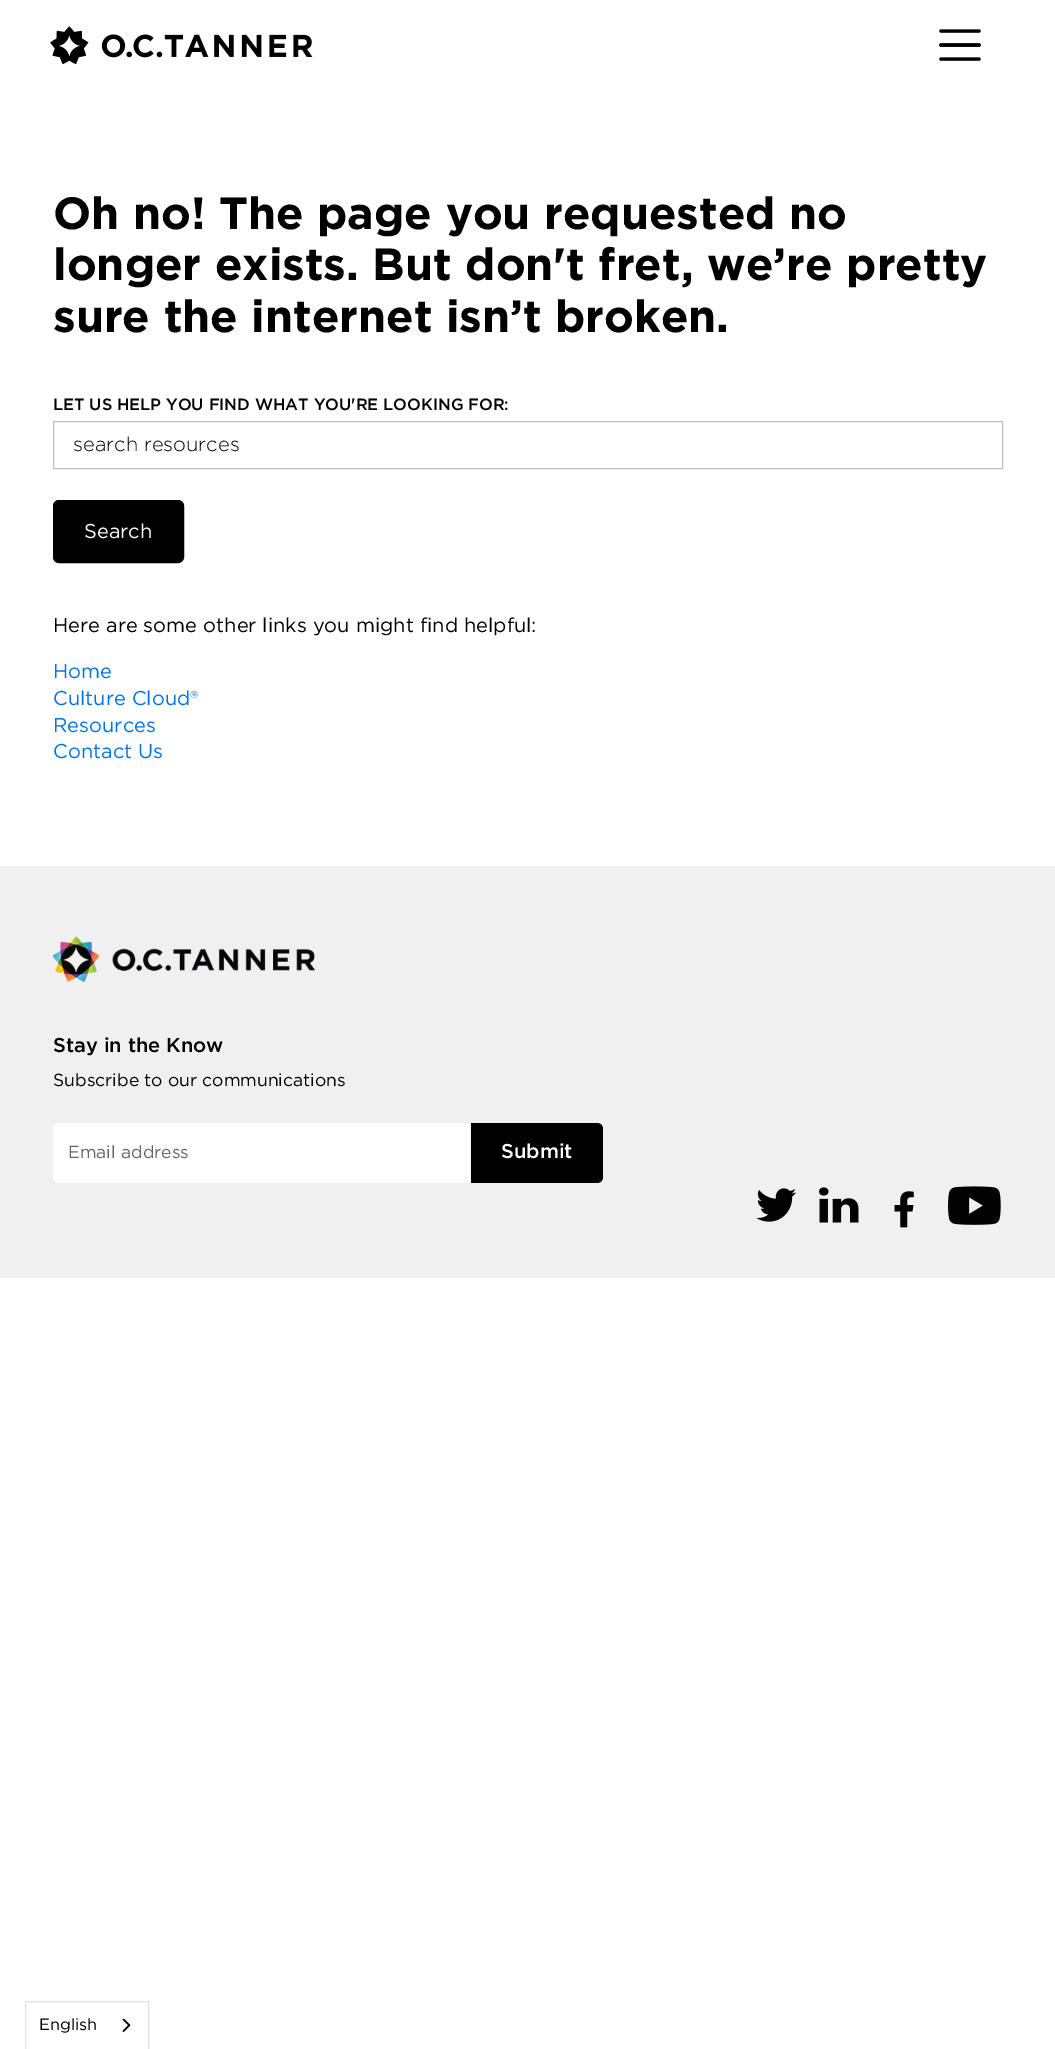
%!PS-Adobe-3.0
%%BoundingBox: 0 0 1055 2049
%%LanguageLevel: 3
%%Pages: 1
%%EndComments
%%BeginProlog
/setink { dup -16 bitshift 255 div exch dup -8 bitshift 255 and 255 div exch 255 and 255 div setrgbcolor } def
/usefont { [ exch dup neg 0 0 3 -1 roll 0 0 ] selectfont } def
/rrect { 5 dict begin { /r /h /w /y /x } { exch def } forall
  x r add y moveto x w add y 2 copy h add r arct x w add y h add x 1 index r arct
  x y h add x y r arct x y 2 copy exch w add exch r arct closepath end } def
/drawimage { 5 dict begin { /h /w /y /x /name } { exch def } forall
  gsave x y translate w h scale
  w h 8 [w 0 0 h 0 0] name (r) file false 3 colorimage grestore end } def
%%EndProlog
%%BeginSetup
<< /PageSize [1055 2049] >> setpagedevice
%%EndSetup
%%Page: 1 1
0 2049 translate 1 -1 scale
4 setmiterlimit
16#FFFFFF setink
0 0 1055 2049 rectfill
(img1.raw) 50 26 263 38 drawimage
(img2.raw) 939 29 42 32 drawimage
/Gotham-Bold 45 usefont
16#000000 setink
[
    [(Oh no! The page you requested no) 53 229]
    [(longer exists. But don't fret, we’re pretty) 53 280]
    [(sure the internet isn’t broken.) 53 332]
] { aload pop moveto show } forall
/Gotham-Medium 16.25 usefont
53 410 moveto (LET US HELP YOU FIND WHAT YOU'RE LOOKING FOR:) show
16#BFBFBE setink
53.5 421.5 949 47 rectstroke
/Gotham-Light 20 usefont
16#000000 setink
73 451 moveto (search resources) show
53.5 500.5 130 62 5.5 rrect gsave fill grestore
stroke
/Gotham-Regular 20 usefont
16#FFFFFF setink
84 538 moveto (Search) show
16#000000 setink
53 632 moveto (Here are some other links you might find helpful:) show
16#0074E7 setink
[
    [(Home) 53 678]
    [(Culture Cloud®) 53 705]
    [(Resources) 53 732]
    [(Contact Us) 53 758]
] { aload pop moveto show } forall
16#F0F0F0 setink
0 866 1055 412 rectfill
(img3.raw) 52 936 263 47 drawimage
/Gotham-Medium 20 usefont
16#000000 setink
53 1052 moveto (Stay in the Know) show
/Gotham-Regular 17.5 usefont
53 1086 moveto (Subscribe to our communications) show
16#FFFFFF setink
59 1123 moveto 470 1123 lineto 470 1183 lineto 59 1183 lineto 55.5 1183 53 1180.5 53 1177 curveto 53 1129 lineto 53 1125.5 55.5 1123 59 1123 curveto closepath fill
16#666666 setink
68 1158 moveto (Email address) show
16#000000 setink
471 1123 moveto 597 1123 lineto 600.5 1123 603 1125.5 603 1129 curveto 603 1177 lineto 603 1180.5 600.5 1183 597 1183 curveto 471 1183 lineto closepath fill
/Gotham-Medium 20 usefont
16#FFFFFF setink
501 1158 moveto (Submit) show
(img4.raw) 756 1188 40 34 drawimage
(img5.raw) 819 1187 40 36 drawimage
(img6.raw) 894 1191 20 37 drawimage
(img7.raw) 948 1186 53 39 drawimage
16#E0E0E0 setink
25.5 2001.5 123 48 rectstroke
/Gotham-Regular 16.25 usefont
16#000000 setink
39 2030 moveto (English) show
(img8.raw) 122 2018 9 14 drawimage
showpage
%%EOF
